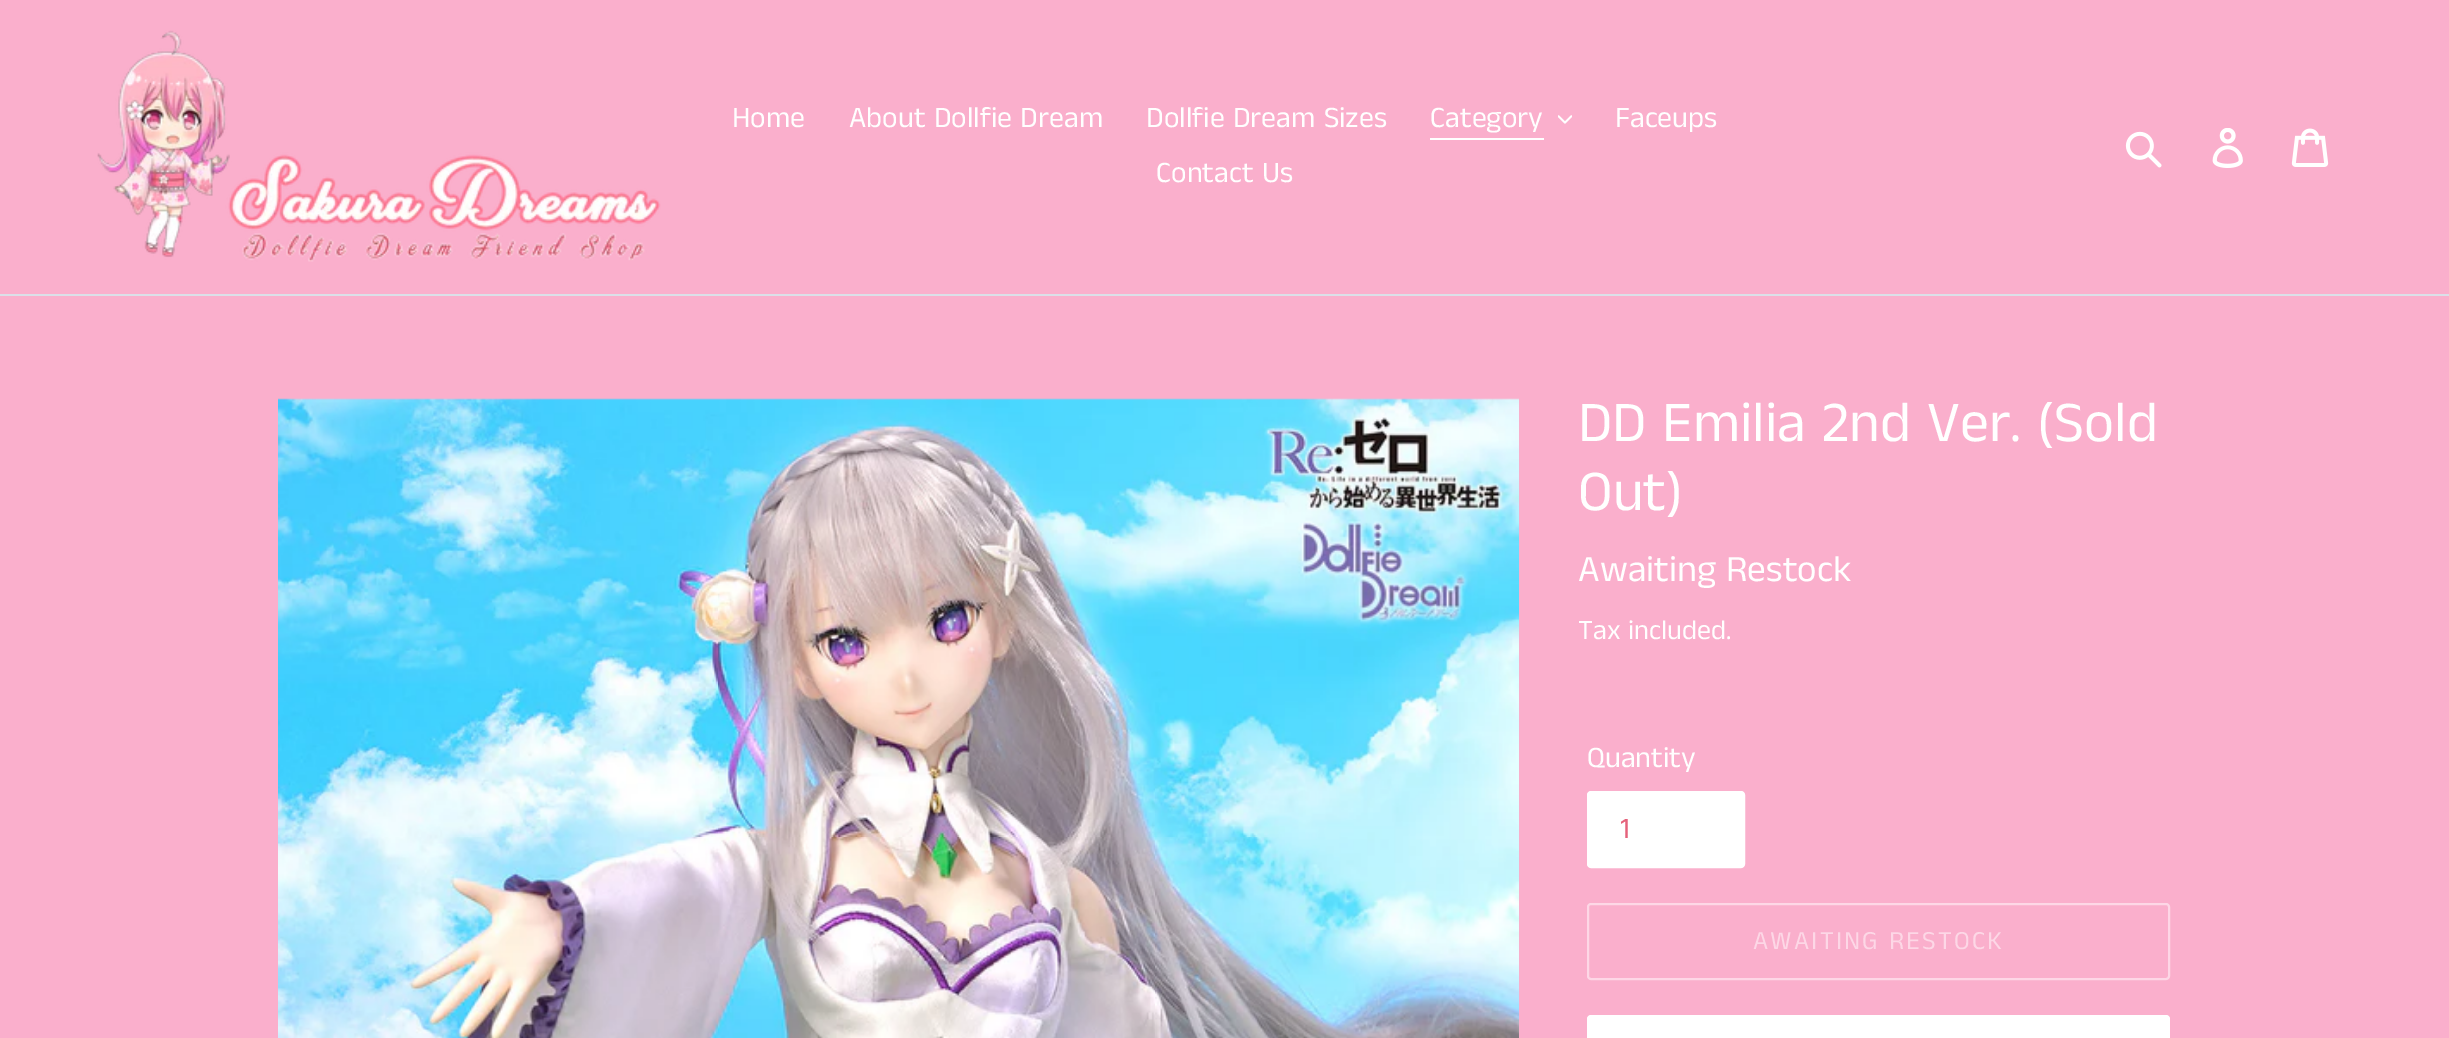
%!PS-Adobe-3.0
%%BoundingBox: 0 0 2449 1038
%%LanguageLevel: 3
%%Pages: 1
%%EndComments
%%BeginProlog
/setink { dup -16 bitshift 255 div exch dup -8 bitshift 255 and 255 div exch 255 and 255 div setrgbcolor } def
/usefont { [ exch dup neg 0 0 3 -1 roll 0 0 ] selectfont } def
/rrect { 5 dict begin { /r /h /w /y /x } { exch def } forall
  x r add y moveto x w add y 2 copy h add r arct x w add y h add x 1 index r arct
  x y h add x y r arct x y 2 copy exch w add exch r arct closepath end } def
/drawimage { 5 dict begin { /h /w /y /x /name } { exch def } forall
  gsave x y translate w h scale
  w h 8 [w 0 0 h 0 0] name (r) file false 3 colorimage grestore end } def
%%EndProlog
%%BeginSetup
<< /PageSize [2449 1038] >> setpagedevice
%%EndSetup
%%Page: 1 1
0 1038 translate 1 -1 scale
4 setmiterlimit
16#FAAFCC setink
0 0 2449 1038 rectfill
16#DBDFE8 setink
0 294 2449 2 rectfill
(img1.raw) 97 30 564 232 drawimage
/AnekTamil-Regular 29.75 usefont
16#FFFFFF setink
[
    [(Home) 732 127]
    [(About Dollfie Dream) 849 127]
    [(Dollfie Dream Sizes) 1146 127]
    [(Category) 1430 127]
] { aload pop moveto show } forall
1430 138 114 2 rectfill
(img2.raw) 1558 115 14 9 drawimage
1615 127 moveto (Faceups) show
1156 182 moveto (Contact Us) show
(img3.raw) 2125 131 37 37 drawimage
(img4.raw) 2212 128 31 40 drawimage
(img5.raw) 2291 128 38 39 drawimage
(img6.raw) 278 398 1241 640 drawimage
/AnekTamil-Regular 57.75 usefont
1578 441 moveto (DD Emilia 2nd Ver. \(Sold) show
1578 510 moveto (Out\)) show
/AnekTamil-Regular 37.25 usefont
1578 581 moveto (Awaiting Restock) show
/AnekTamil-Regular 28 usefont
1578 639 moveto (Tax included.) show
/AnekTamil-Regular 29.75 usefont
1587 767 moveto (Quantity) show
1588 792 156 75 3 rrect gsave fill grestore
2 setlinewidth
stroke
gsave
1621 812 64 35 rectclip
16#E5627B setink
1620 838 moveto (1) show
grestore
16#FDD7E6 setink
1588 904 581 75 3 rrect stroke
/AnekTamil-Regular 26.25 usefont
1753 949 moveto 2.1 0 (AWAITING RESTOCK) ashow
16#FFFFFF setink
1587 1015 583 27 4 rrect fill
showpage
%%EOF
